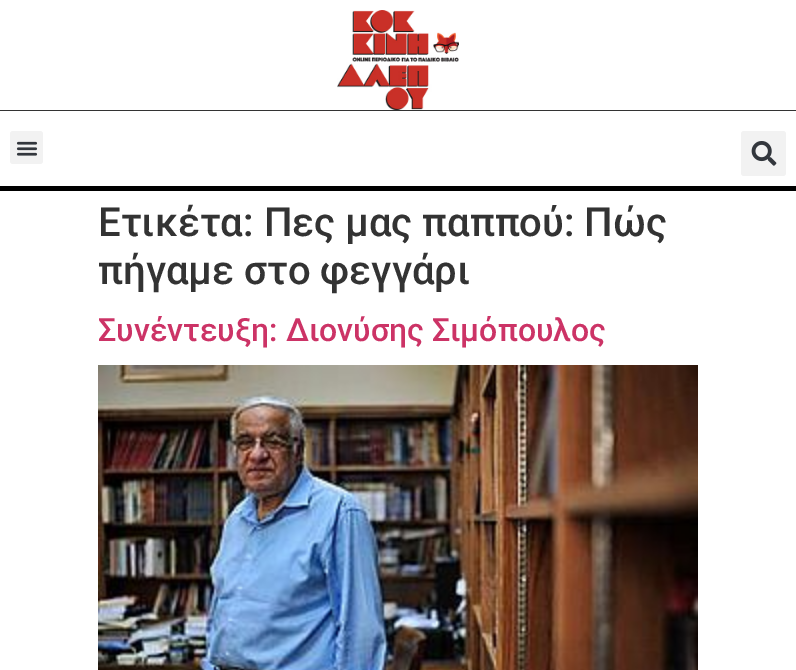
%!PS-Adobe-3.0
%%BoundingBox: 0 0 796 670
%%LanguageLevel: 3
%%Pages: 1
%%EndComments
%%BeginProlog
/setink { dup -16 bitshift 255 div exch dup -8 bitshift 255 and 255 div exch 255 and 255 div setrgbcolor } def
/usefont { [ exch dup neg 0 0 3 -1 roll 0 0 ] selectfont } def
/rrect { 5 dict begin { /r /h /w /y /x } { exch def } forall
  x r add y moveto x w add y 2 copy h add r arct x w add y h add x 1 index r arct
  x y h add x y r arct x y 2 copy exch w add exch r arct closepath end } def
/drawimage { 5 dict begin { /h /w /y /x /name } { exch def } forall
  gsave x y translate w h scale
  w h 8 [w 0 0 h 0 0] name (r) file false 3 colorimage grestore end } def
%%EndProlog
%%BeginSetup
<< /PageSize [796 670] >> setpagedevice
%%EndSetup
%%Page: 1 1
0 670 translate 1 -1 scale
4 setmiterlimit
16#FFFFFF setink
0 0 796 670 rectfill
16#333333 setink
0 110 796 1 rectfill
(img1.raw) 337 10 122 100 drawimage
16#000000 setink
0 186 796 5 rectfill
16#F2F2F2 setink
10 131 33 33 3 rrect fill
(img2.raw) 16 141 22 15 drawimage
741 131 45 45 3 rrect fill
(img3.raw) 751 141 26 25 drawimage
/Roboto-Medium 40 usefont
16#333333 setink
98 236 moveto (Ετικέτα: Πες μας παππού: Πώς) show
98 284 moveto (πήγαμε στο φεγγάρι) show
/Roboto-Medium 32 usefont
16#CC3366 setink
98 341 moveto (Συνέντευξη: Διονύσης Σιμόπουλος) show
(img4.raw) 98 365 600 305 drawimage
showpage
%%EOF
